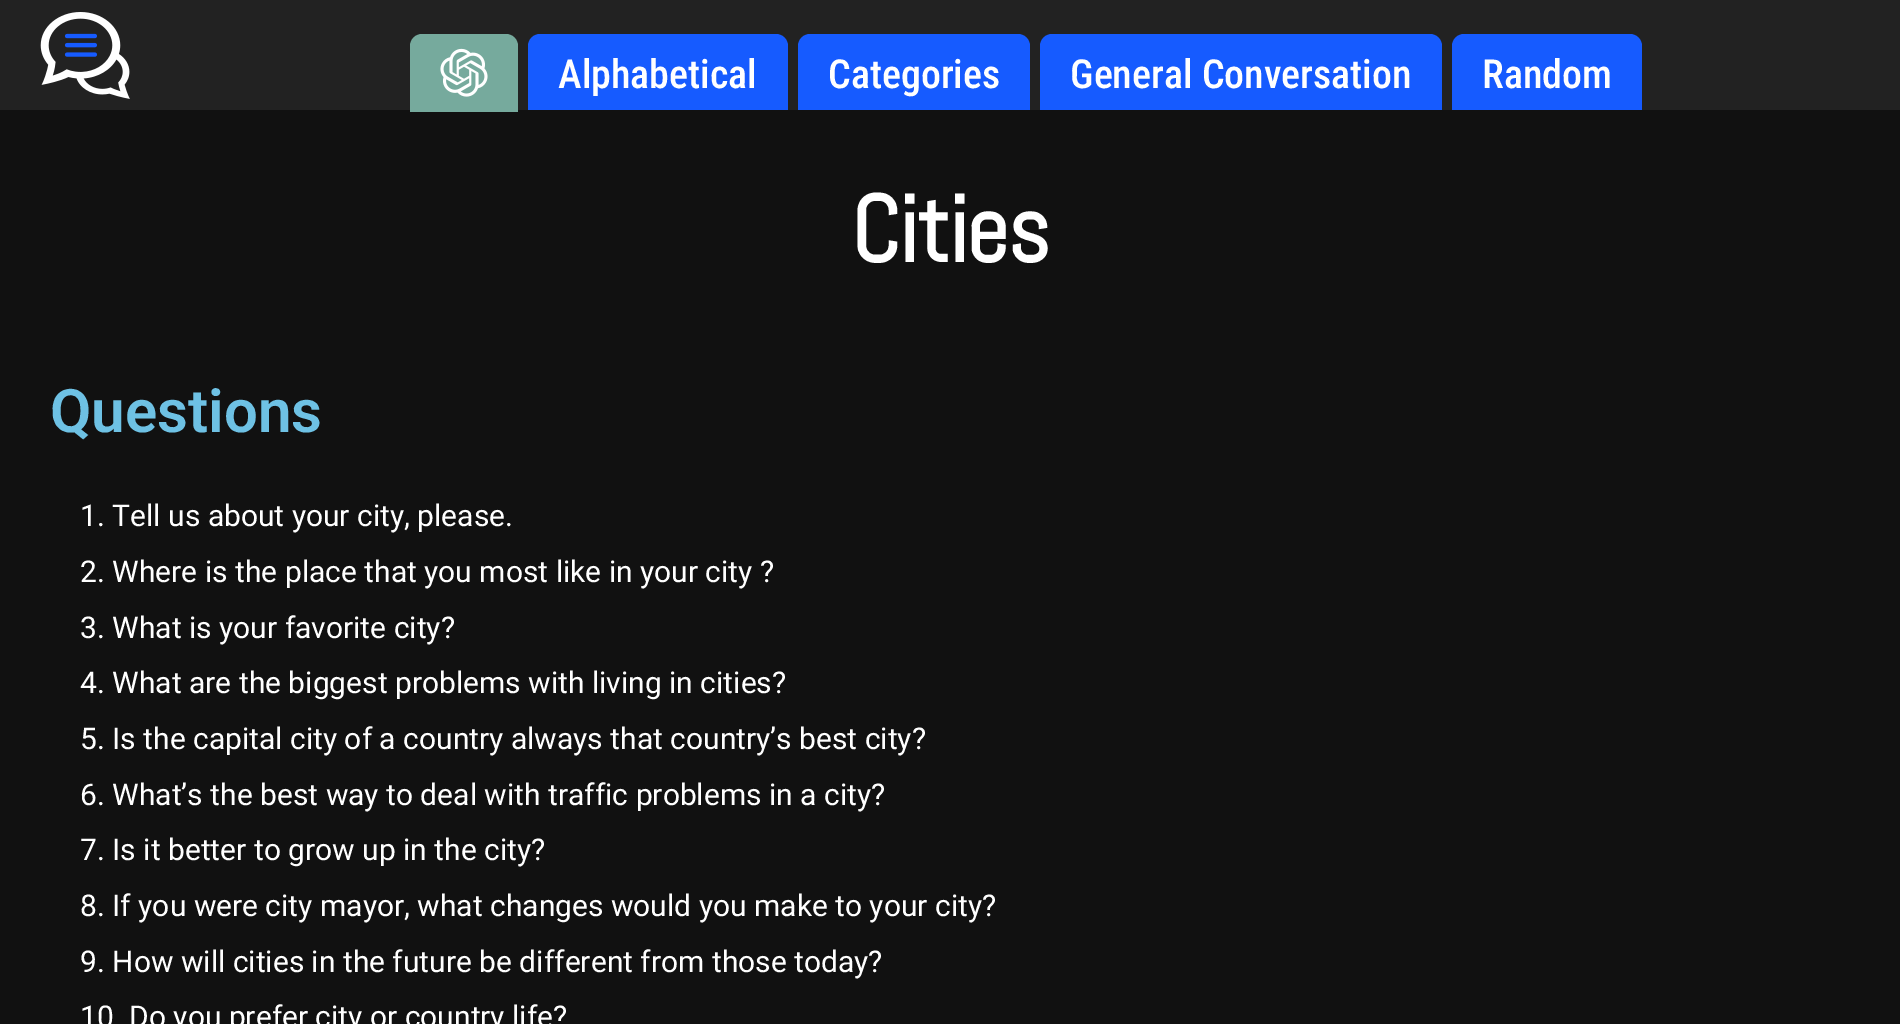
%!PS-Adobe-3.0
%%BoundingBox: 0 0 1900 1024
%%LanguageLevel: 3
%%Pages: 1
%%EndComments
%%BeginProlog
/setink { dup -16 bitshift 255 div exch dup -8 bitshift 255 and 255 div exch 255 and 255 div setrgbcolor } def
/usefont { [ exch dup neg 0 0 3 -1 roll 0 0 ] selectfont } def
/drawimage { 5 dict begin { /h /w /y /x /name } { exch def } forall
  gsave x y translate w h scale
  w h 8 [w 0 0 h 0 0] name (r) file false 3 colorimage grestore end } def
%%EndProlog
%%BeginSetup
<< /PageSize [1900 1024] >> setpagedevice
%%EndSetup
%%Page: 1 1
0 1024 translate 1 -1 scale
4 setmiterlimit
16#111111 setink
0 0 1900 1024 rectfill
16#222222 setink
0 0 1900 110 rectfill
(img1.raw) 40 12 90 87 drawimage
16#76AA9D setink
422 34 moveto 506 34 lineto 512.5 34 518 39.5 518 46 curveto 518 112 lineto 410 112 lineto 410 46 lineto 410 39.5 415.5 34 422 34 curveto closepath fill
(img2.raw) 440 48 48 49 drawimage
16#165BFF setink
540 34 moveto 776 34 lineto 782.5 34 788 39.5 788 46 curveto 788 110 lineto 528 110 lineto 528 46 lineto 528 39.5 533.5 34 540 34 curveto closepath fill
/RobotoCondensed-Medium 40 usefont
16#FFFFFF setink
558 88 moveto (Alphabetical) show
16#165BFF setink
810 34 moveto 1018 34 lineto 1024.5 34 1030 39.5 1030 46 curveto 1030 110 lineto 798 110 lineto 798 46 lineto 798 39.5 803.5 34 810 34 curveto closepath fill
16#FFFFFF setink
828 88 moveto (Categories) show
16#165BFF setink
1052 34 moveto 1430 34 lineto 1436.5 34 1442 39.5 1442 46 curveto 1442 110 lineto 1040 110 lineto 1040 46 lineto 1040 39.5 1045.5 34 1052 34 curveto closepath fill
16#FFFFFF setink
1070 88 moveto (General Conversation) show
16#165BFF setink
1464 34 moveto 1630 34 lineto 1636.5 34 1642 39.5 1642 46 curveto 1642 110 lineto 1452 110 lineto 1452 46 lineto 1452 39.5 1457.5 34 1464 34 curveto closepath fill
16#FFFFFF setink
1482 88 moveto (Random) show
/Abel-Bold 94 usefont
851 262 moveto -2 0 (Cities) ashow
/Roboto-SemiBold 60 usefont
16#6EC1E4 setink
50 432 moveto (Questions) show
/Roboto-Regular 30 usefont
16#FFFFFF setink
[
    [(1. Tell us about your city, please.) 80 526]
    [(2. Where is the place that you most like in your city ?) 80 582]
    [(3. What is your favorite city?) 80 638]
    [(4. What are the biggest problems with living in cities?) 80 693]
    [(5. Is the capital city of a country always that country’s best city?) 80 749]
    [(6. What’s the best way to deal with traffic problems in a city?) 80 805]
    [(7. Is it better to grow up in the city?) 80 860]
    [(8. If you were city mayor, what changes would you make to your city?) 80 916]
    [(9. How will cities in the future be different from those today?) 80 972]
    [(10. Do you prefer city or country life?) 80 1027]
] { aload pop moveto show } forall
showpage
%%EOF
